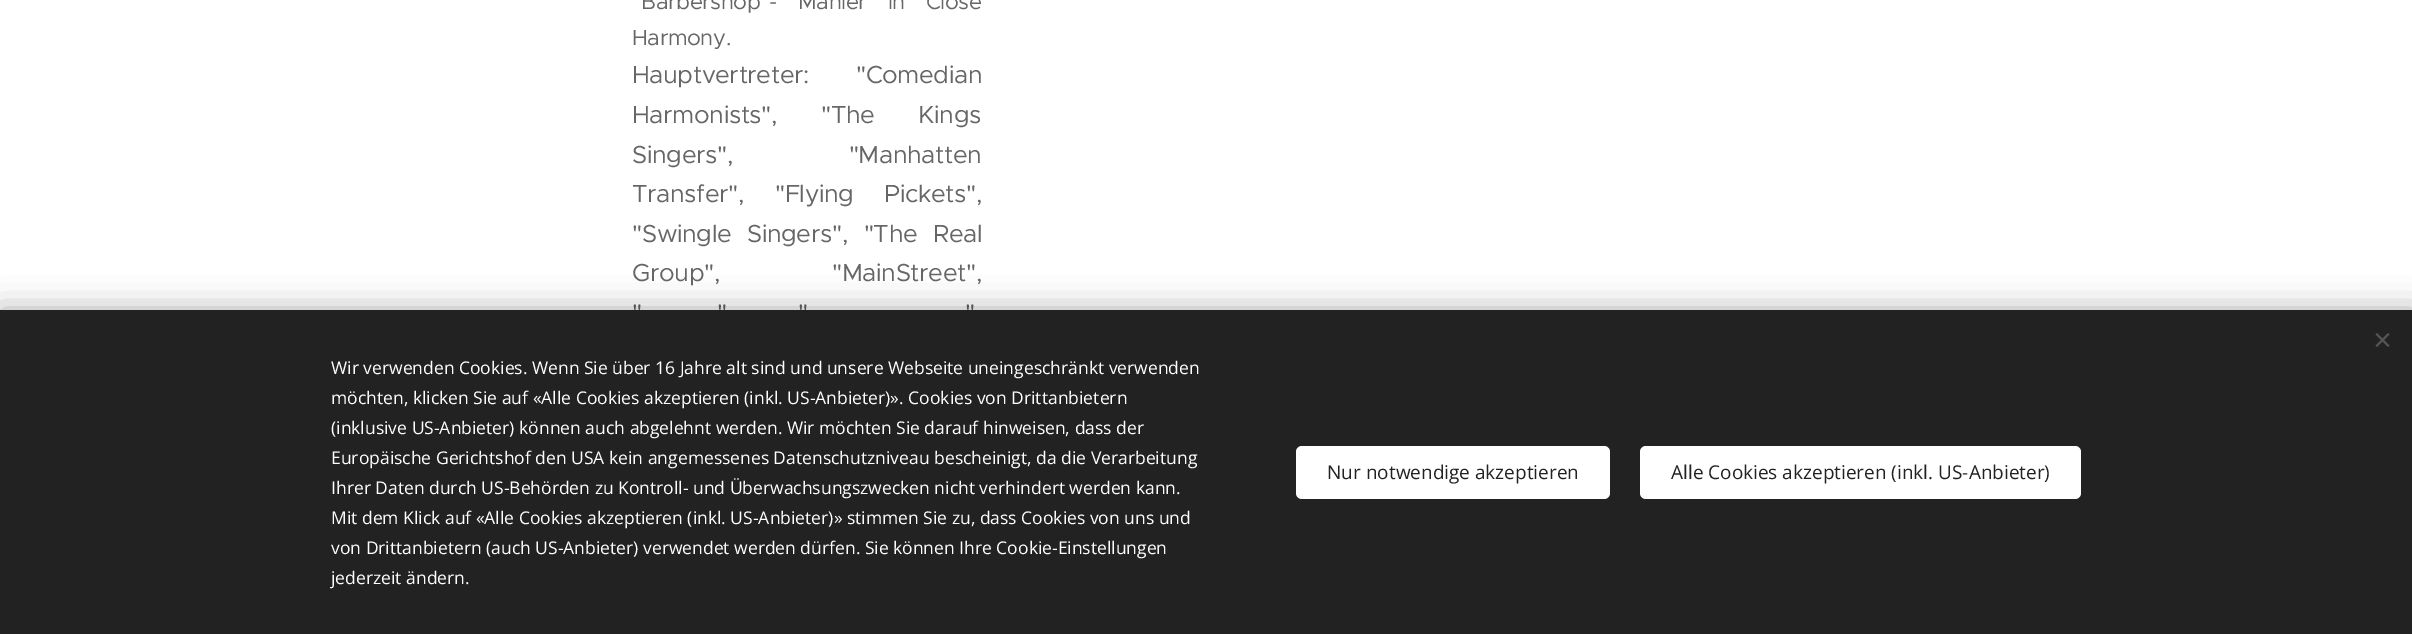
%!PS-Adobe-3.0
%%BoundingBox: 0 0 2412 634
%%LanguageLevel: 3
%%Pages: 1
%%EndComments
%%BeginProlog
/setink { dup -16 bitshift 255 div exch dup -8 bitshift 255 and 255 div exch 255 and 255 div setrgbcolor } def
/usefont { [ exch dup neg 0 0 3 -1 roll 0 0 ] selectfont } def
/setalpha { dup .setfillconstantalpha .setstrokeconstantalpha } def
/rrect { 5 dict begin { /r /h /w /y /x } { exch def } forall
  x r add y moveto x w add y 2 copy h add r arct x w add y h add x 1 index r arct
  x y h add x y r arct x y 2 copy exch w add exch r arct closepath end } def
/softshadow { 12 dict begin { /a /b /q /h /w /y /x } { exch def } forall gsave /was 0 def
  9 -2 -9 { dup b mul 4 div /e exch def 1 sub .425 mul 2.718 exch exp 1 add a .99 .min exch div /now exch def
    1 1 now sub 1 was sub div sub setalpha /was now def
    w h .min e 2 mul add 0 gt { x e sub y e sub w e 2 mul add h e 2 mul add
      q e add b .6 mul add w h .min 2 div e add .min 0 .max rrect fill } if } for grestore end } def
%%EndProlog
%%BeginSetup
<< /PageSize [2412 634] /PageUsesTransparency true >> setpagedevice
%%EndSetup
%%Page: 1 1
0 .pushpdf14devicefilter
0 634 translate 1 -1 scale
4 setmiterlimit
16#FFFFFF setink
0 0 2412 634 rectfill
/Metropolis-Regular 22 usefont
16#666666 setink
641 9 moveto 15 0 32 -0.4 0 (Barbershop"- Manier in Close) awidthshow
632 45 moveto -0.4 0 (Harmony.) ashow
/Metropolis-Regular 24.75 usefont
632 83 moveto 40 0 32 -0.4 0 (Hauptvertreter: "Comedian) awidthshow
632 123 moveto 37 0 32 -0.4 0 (Harmonists", "The Kings) awidthshow
632 163 moveto 109 0 32 -0.4 0 (Singers", "Manhatten) awidthshow
632 202 moveto 24 0 32 -0.4 0 (Transfer", "Flying Pickets",) awidthshow
632 242 moveto 9 0 32 -0.4 0 ("Swingle Singers", "The Real) awidthshow
632 281 moveto 105 0 32 -0.4 0 (Group", "MainStreet",) awidthshow
632 321 moveto 58 0 32 -0.4 0 (") awidthshow
717 321 moveto 58 0 32 -0.4 0 (", ") awidthshow
965 321 moveto 58 0 32 -0.4 0 (") awidthshow
16#000000 setink
0 310 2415 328 0 15.5 0.33 softshadow
16#222222 setink
0 310 2412 324 rectfill
16#555555 setink
2375.5 345.5 moveto 2388 333 lineto 2389.5 334.5 lineto 2377 347 lineto closepath fill
2377 333 moveto 2389.5 345.5 lineto 2388 347 lineto 2375.5 334.5 lineto closepath fill
/OpenSans-Regular 17.5 usefont
16#FFFFFF setink
[
    [(Wir verwenden Cookies. Wenn Sie über 16 Jahre alt sind und unsere Webseite uneingeschränkt verwenden) 331 374]
    [(möchten, klicken Sie auf «Alle Cookies akzeptieren \(inkl. US-Anbieter\)». Cookies von Drittanbietern) 331 404]
    [(\(inklusive US-Anbieter\) können auch abgelehnt werden. Wir möchten Sie darauf hinweisen, dass der) 331 434]
    [(Europäische Gerichtshof den USA kein angemessenes Datenschutzniveau bescheinigt, da die Verarbeitung) 331 464]
    [(Ihrer Daten durch US-Behörden zu Kontroll- und Überwachsungszwecken nicht verhindert werden kann.) 331 494]
    [(Mit dem Klick auf «Alle Cookies akzeptieren \(inkl. US-Anbieter\)» stimmen Sie zu, dass Cookies von uns und) 331 524]
    [(von Drittanbietern \(auch US-Anbieter\) verwendet werden dürfen. Sie können Ihre Cookie-Einstellungen) 331 554]
    [(jederzeit ändern.) 331 584]
] { aload pop moveto show } forall
1296 446 314 53 6 rrect fill
/OpenSans-Regular 19 usefont
16#222222 setink
1327 479 moveto (Nur notwendige akzeptieren) show
16#FFFFFF setink
1640 446 441 53 6 rrect fill
16#222222 setink
1671 479 moveto (Alle Cookies akzeptieren \(inkl. US-Anbieter\)) show
.poppdf14devicefilter showpage
%%EOF
